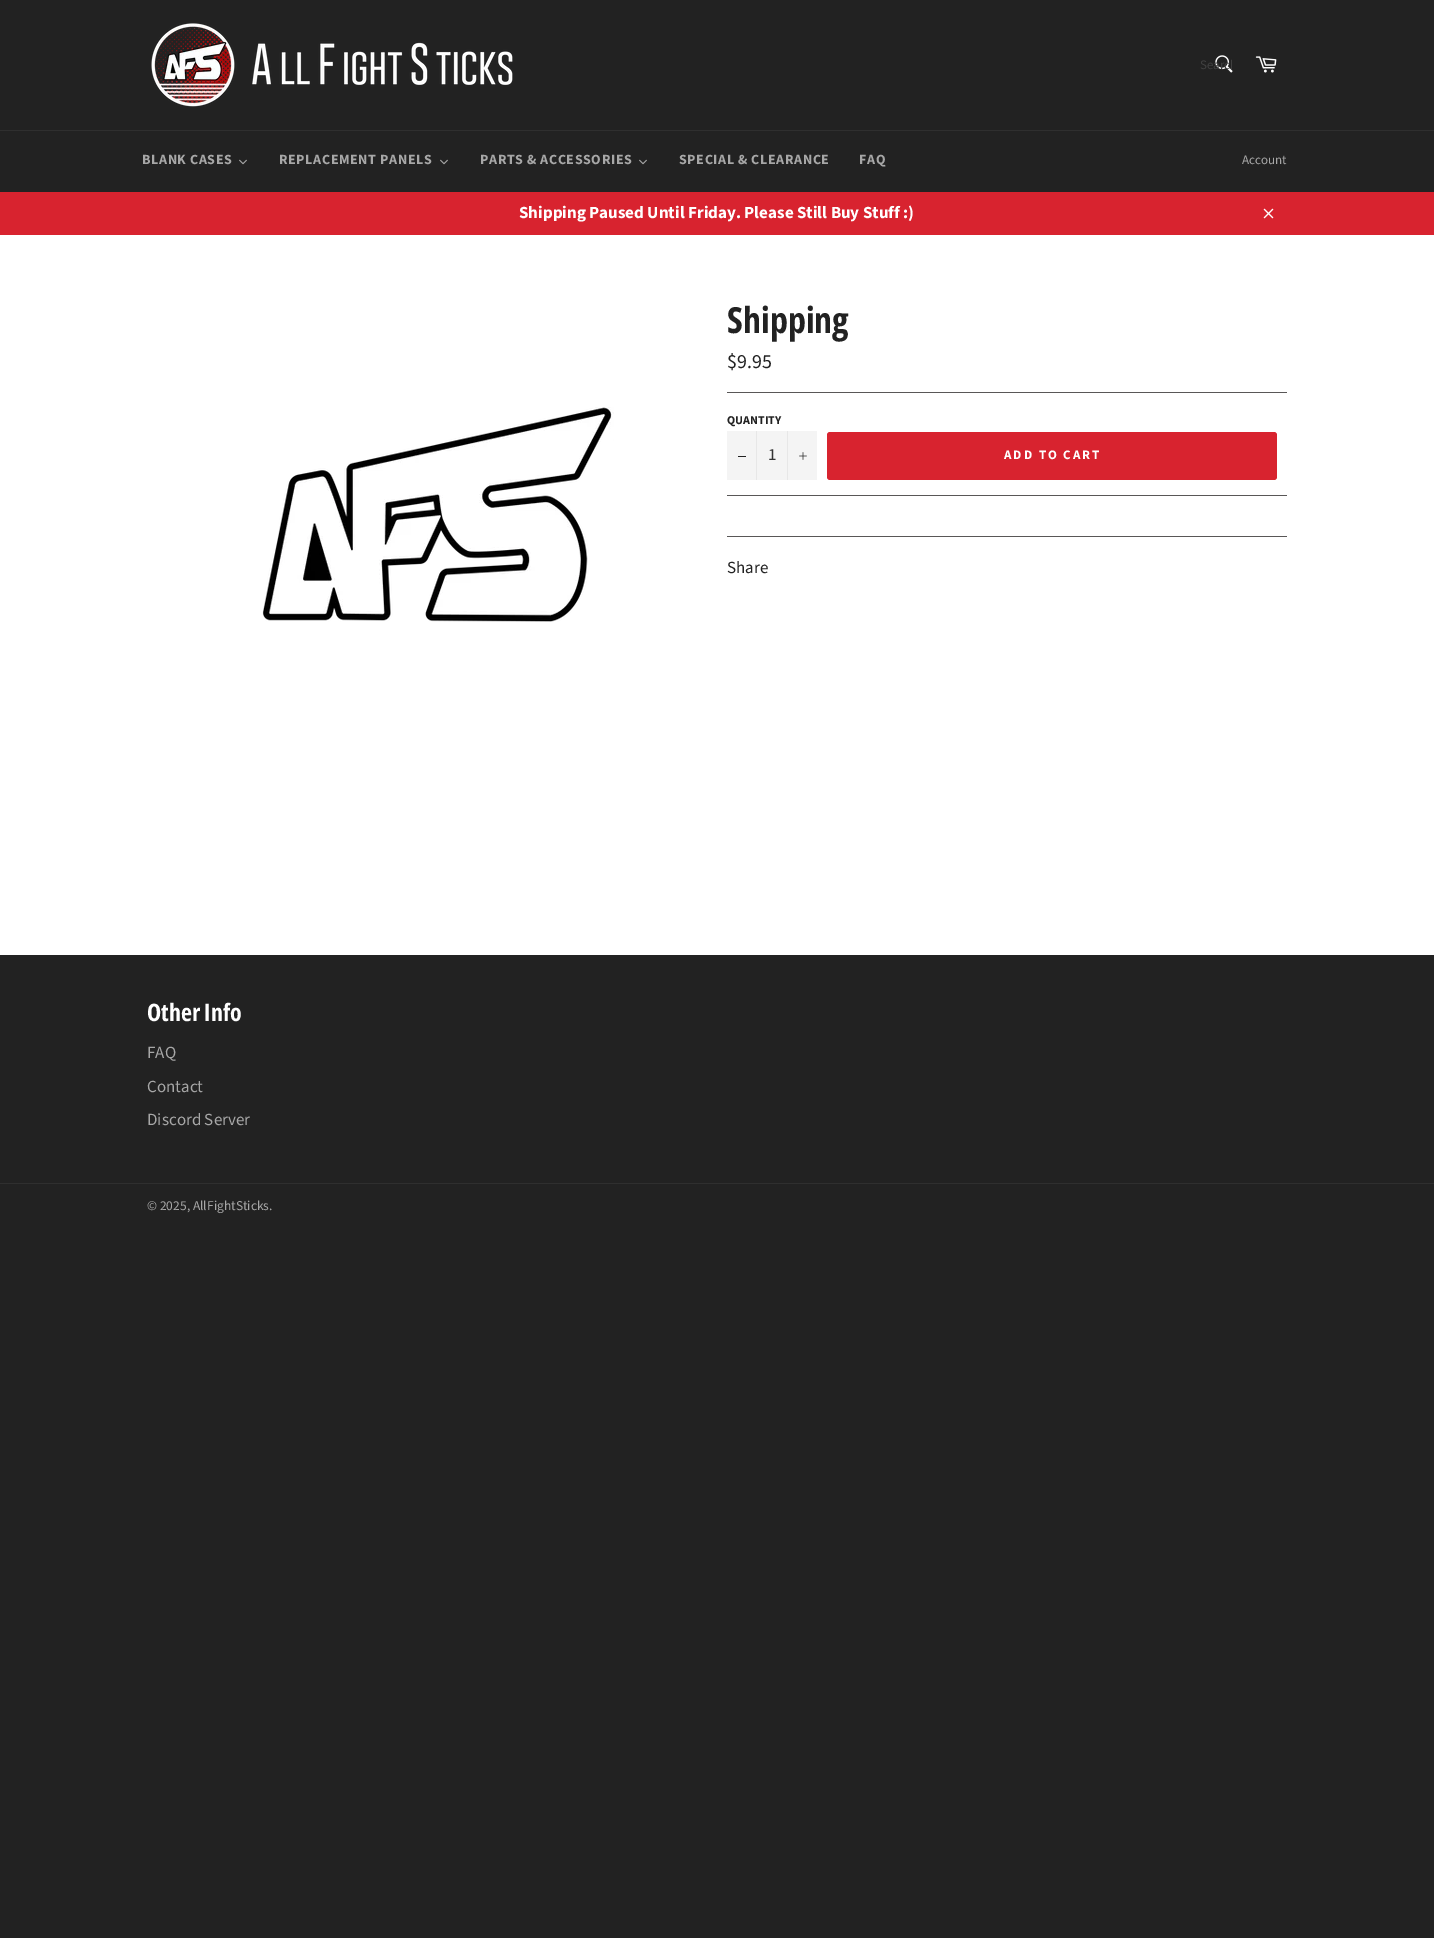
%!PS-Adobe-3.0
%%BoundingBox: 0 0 1434 1938
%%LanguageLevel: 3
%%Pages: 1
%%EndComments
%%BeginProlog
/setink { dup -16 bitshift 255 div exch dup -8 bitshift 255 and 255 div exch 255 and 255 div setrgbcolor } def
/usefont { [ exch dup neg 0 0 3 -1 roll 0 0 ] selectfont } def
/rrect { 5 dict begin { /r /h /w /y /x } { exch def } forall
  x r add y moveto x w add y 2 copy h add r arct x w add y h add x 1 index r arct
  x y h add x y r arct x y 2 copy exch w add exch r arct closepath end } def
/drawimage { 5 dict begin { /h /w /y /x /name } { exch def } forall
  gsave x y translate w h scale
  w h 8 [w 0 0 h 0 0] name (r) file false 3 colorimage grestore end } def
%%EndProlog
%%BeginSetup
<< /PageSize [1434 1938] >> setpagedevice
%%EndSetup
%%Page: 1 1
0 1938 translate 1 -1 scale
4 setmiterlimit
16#222222 setink
0 0 1434 1938 rectfill
(img1.raw) 151 23 362 84 drawimage
(img2.raw) 1215 55 18 18 drawimage
gsave
1200 56 32 18 rectclip
/SourceSansPro-Regular 13 usefont
16#404040 setink
1200 69 moveto (Search) show
grestore
(img3.raw) 1255 56 22 17 drawimage
16#2F2F2F setink
0 130 1434 1 rectfill
/SourceSansPro-Bold 14 usefont
16#A7A7A7 setink
142 164 moveto 0.6 0 (BLANK CASES) ashow
(img4.raw) 239 159 8 6 drawimage
279 164 moveto 0.6 0 (REPLACEMENT PANELS) ashow
(img4.raw) 440 159 8 6 drawimage
480 164 moveto 0.6 0 (PARTS & ACCESSORIES) ashow
(img4.raw) 639 159 8 6 drawimage
679 164 moveto 0.6 0 (SPECIAL & CLEARANCE) ashow
859 164 moveto 0.6 0 (FAQ) ashow
/SourceSansPro-Regular 13 usefont
1242 164 moveto (Account) show
16#D8232F setink
0 192 1434 43 rectfill
/SourceSansPro-Bold 17 usefont
16#FFFFFF setink
519 218 moveto (Shipping Paused Until Friday. Please Still Buy Stuff :\)) show
(img5.raw) 1263 208 11 11 drawimage
0 235 1434 720 rectfill
(img6.raw) 262 407 352 215 drawimage
/OpenSansCondensed-Bold 36 usefont
16#222222 setink
727 333 moveto (Shipping) show
/SourceSansPro-Regular 20 usefont
727 368 moveto ($9.95) show
16#595757 setink
727 392 560 1 rectfill
/SourceSansPro-Bold 12 usefont
16#222222 setink
727 424 moveto (QUANTITY) show
[
    [727 431 90 49 16#F4F4F4]
    [756 431 1 49 16#E7E7E7]
    [738 456 8 1 16#222222]
] { aload pop setink rectfill } forall
/SourceSansPro-Regular 17 usefont
16#333333 setink
768 460 moveto (1) show
16#E7E7E7 setink
787 431 1 49 rectfill
(img7.raw) 799 452 8 8 drawimage
16#D8232F setink
827 432 450 48 3 rrect fill
/SourceSansPro-Bold 13 usefont
16#FFFFFF setink
1004 459 moveto 2 0 (ADD TO CART) ashow
16#595757 setink
727 495 560 1 rectfill
727 536 560 1 rectfill
/SourceSansPro-Regular 17 usefont
16#222222 setink
727 573 moveto (Share) show
/OpenSansCondensed-Bold 24 usefont
16#FFFFFF setink
147 1021 moveto (Other Info) show
/SourceSansPro-Regular 17 usefont
16#A7A7A7 setink
[
    [(FAQ) 147 1058]
    [(Contact) 147 1092]
    [(Discord Server) 147 1125]
] { aload pop moveto show } forall
16#2F2F2F setink
0 1183 1434 1 rectfill
/SourceSansPro-Regular 13.5 usefont
16#A7A7A7 setink
147 1210 moveto (© 2025, AllFightSticks.) show
showpage
%%EOF
